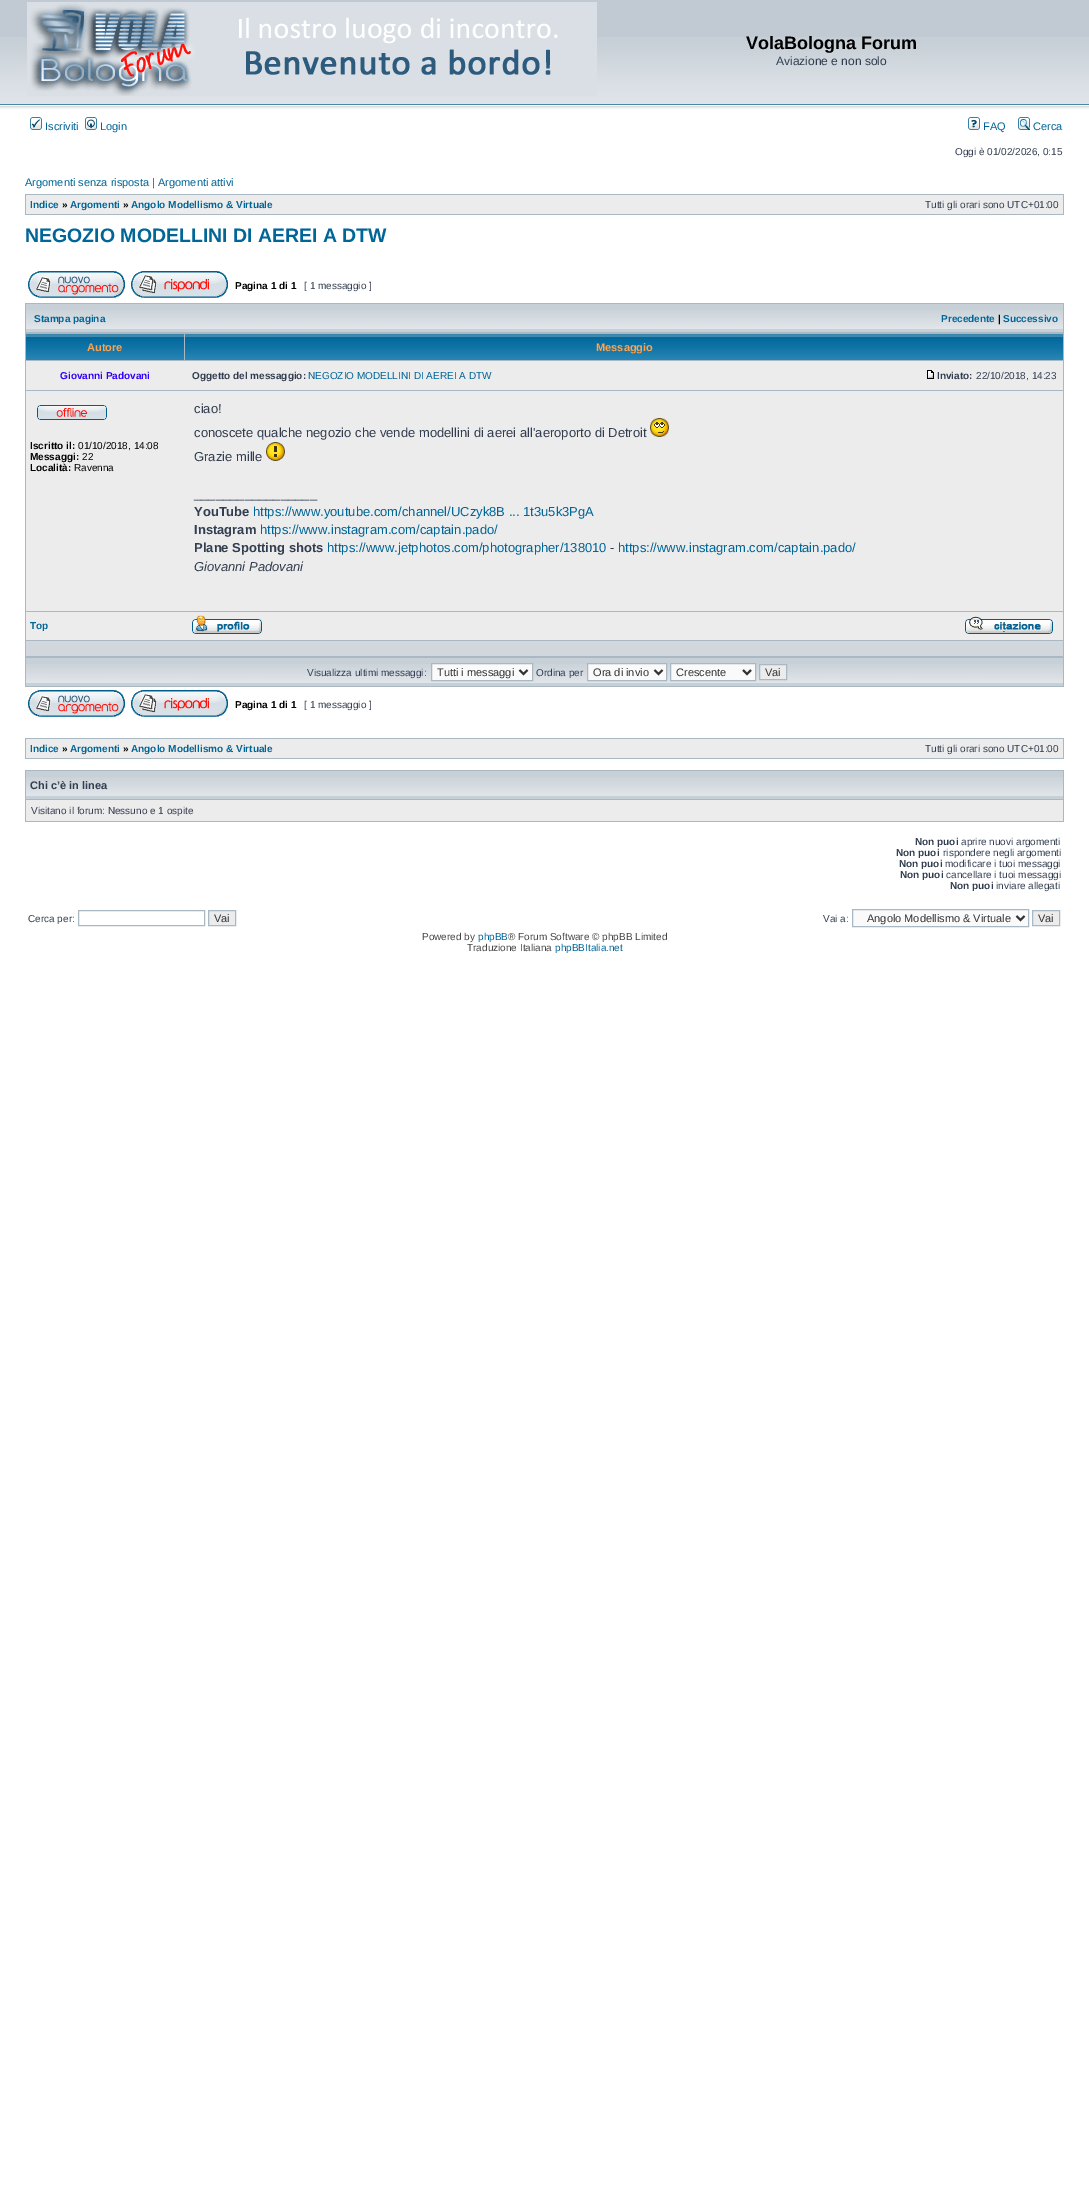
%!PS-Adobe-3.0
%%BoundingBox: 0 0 1089 2200
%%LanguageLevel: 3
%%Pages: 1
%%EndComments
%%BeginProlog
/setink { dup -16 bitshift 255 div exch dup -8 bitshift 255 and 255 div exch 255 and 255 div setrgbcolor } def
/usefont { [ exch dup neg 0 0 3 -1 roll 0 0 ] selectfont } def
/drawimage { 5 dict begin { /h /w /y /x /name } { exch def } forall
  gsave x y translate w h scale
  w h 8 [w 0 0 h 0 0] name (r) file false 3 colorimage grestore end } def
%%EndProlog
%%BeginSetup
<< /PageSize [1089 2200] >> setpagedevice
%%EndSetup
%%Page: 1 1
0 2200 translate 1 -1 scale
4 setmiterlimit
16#FFFFFF setink
0 0 1089 2200 rectfill
16#C1CAD2 setink
0 0 1089 37 rectfill
(img1.raw) 0 37 1089 78 drawimage
(img2.raw) 27 2 570 94 drawimage
/LiberationSans-Bold 18 usefont
16#000000 setink
746 49 moveto (VolaBologna Forum) show
/LiberationSans-Regular 12 usefont
16#323D4F setink
776 65 moveto (Aviazione e non solo) show
(img3.raw) 30 117 12 13 drawimage
/LiberationSans-Regular 11 usefont
16#006597 setink
45 130 moveto (Iscriviti) show
(img4.raw) 85 117 12 13 drawimage
100 130 moveto (Login) show
(img5.raw) 968 117 12 13 drawimage
983 130 moveto (FAQ) show
(img6.raw) 1018 117 12 13 drawimage
1033 130 moveto (Cerca) show
/LiberationSans-Regular 10 usefont
16#323D4F setink
955 155 moveto (Oggi è 01/02/2026, 0:15) show
/LiberationSans-Regular 11 usefont
16#006597 setink
25 186 moveto (Argomenti senza risposta) show
16#323D4F setink
152 186 moveto (|) show
16#006597 setink
158 186 moveto (Argomenti attivi) show
16#A9B8C2 setink
25 194 1039 21 rectfill
16#ECECEC setink
26 195 1037 19 rectfill
/LiberationSans-Bold 10 usefont
16#006597 setink
30 208 moveto (Indice) show
16#000000 setink
62 208 moveto (») show
16#006597 setink
70 208 moveto (Argomenti) show
16#000000 setink
123 208 moveto (») show
16#006597 setink
131 208 moveto (Angolo Modellismo & Virtuale) show
/LiberationSans-Regular 10 usefont
16#323D4F setink
925 208 moveto (Tutti gli orari sono UTC+01:00) show
/LiberationSans-Bold 19.5 usefont
16#006597 setink
25 242 moveto (NEGOZIO MODELLINI DI AEREI A DTW) show
(img7.raw) 28 271 97 27 drawimage
(img8.raw) 131 271 97 27 drawimage
/LiberationSans-Bold 10 usefont
16#000000 setink
235 289 moveto (Pagina 1 di 1) show
/LiberationSans-Regular 10 usefont
16#323D4F setink
304 289 moveto ([ 1 messaggio ]) show
16#A9B8C2 setink
25 303 1039 384 rectfill
16#C7D0D7 setink
26 304 1037 28 rectfill
(img9.raw) 26 310 1037 19 drawimage
/LiberationSans-Bold 10 usefont
16#006597 setink
34 322 moveto (Stampa pagina) show
941 322 moveto (Precedente) show
16#000000 setink
998 322 moveto (|) show
16#006597 setink
1003 322 moveto (Successivo) show
(img10.raw) 26 334 158 26 drawimage
/LiberationSans-Bold 11 usefont
16#FFA34F setink
87 351 moveto (Autore) show
(img11.raw) 185 334 878 26 drawimage
596 351 moveto (Messaggio) show
16#ECECEC setink
26 361 1037 29 rectfill
/LiberationSans-Bold 10 usefont
16#3300FF setink
60 379 moveto (Giovanni Padovani) show
16#323D4F setink
192 379 moveto (Oggetto del messaggio:) show
/LiberationSans-Regular 10 usefont
16#006597 setink
308 379 moveto (NEGOZIO MODELLINI DI AEREI A DTW) show
(img12.raw) 927 370 7 9 drawimage
/LiberationSans-Bold 10 usefont
16#323D4F setink
937 379 moveto (Inviato:) show
/LiberationSans-Regular 10 usefont
976 379 moveto (22/10/2018, 14:23) show
16#ECECEC setink
26 391 1037 220 rectfill
(img13.raw) 37 405 70 15 drawimage
/LiberationSans-Bold 10 usefont
16#000000 setink
30 449 moveto (Iscritto il:) show
/LiberationSans-Regular 10 usefont
78 449 moveto (01/10/2018, 14:08) show
/LiberationSans-Bold 10 usefont
30 460 moveto (Messaggi:) show
/LiberationSans-Regular 10 usefont
82 460 moveto (22) show
/LiberationSans-Bold 10 usefont
30 471 moveto (Località:) show
/LiberationSans-Regular 10 usefont
74 471 moveto (Ravenna) show
/LiberationSans-Regular 13 usefont
16#323D4F setink
194 413 moveto (ciao!) show
194 437 moveto (conoscete qualche negozio che vende modellini di aerei all'aeroporto di Detroit) show
(img14.raw) 650 418 19 19 drawimage
194 461 moveto (Grazie mille) show
(img15.raw) 266 442 19 19 drawimage
194 498 moveto (_________________) show
/LiberationSans-Bold 13 usefont
194 516 moveto (YouTube) show
/LiberationSans-Regular 13 usefont
16#006597 setink
253 516 moveto (https://www.youtube.com/channel/UCzyk8B ... 1t3u5k3PgA) show
/LiberationSans-Bold 13 usefont
16#323D4F setink
194 534 moveto (Instagram) show
/LiberationSans-Regular 13 usefont
16#006597 setink
260 534 moveto (https://www.instagram.com/captain.pado/) show
/LiberationSans-Bold 13 usefont
16#323D4F setink
194 552 moveto (Plane Spotting shots) show
/LiberationSans-Regular 13 usefont
16#006597 setink
327 552 moveto (https://www.jetphotos.com/photographer/138010) show
16#323D4F setink
610 552 moveto (-) show
16#006597 setink
618 552 moveto (https://www.instagram.com/captain.pado/) show
/LiberationSans-Italic 13 usefont
16#323D4F setink
194 571 moveto (Giovanni Padovani) show
16#ECECEC setink
26 612 1037 28 rectfill
/LiberationSans-Bold 10 usefont
16#006597 setink
30 629 moveto (Top) show
(img16.raw) 192 615 70 19 drawimage
(img17.raw) 965 616 88 18 drawimage
16#D1D7DC setink
26 641 1037 15 rectfill
16#C7D0D7 setink
26 658 1037 28 rectfill
(img9.raw) 26 664 1037 19 drawimage
/LiberationSans-Regular 10 usefont
16#323D4F setink
307 676 moveto (Visualizza ultimi messaggi:) show
16#FAFAFA setink
431.5 663.5 moveto 532.5 663.5 lineto 532.5 680.5 lineto 431.5 680.5 lineto closepath gsave fill grestore
16#A9B8C2 setink
stroke
16#333333 setink
2 setlinewidth
519.5 670 moveto 523.5 674 lineto 527.5 670 lineto stroke
/LiberationSans-Regular 11 usefont
437 676 moveto (Tutti i messaggi) show
/LiberationSans-Regular 10 usefont
16#323D4F setink
536 676 moveto (Ordina per) show
16#FAFAFA setink
587.5 663.5 moveto 666.5 663.5 lineto 666.5 680.5 lineto 587.5 680.5 lineto closepath gsave fill grestore
16#A9B8C2 setink
1 setlinewidth
stroke
16#333333 setink
2 setlinewidth
654.5 670 moveto 658.5 674 lineto 662.5 670 lineto stroke
/LiberationSans-Regular 11 usefont
593 676 moveto (Ora di invio) show
16#FAFAFA setink
670.5 663.5 moveto 755.5 663.5 lineto 755.5 680.5 lineto 670.5 680.5 lineto closepath gsave fill grestore
16#A9B8C2 setink
1 setlinewidth
stroke
16#333333 setink
2 setlinewidth
743 670 moveto 747 674 lineto 751 670 lineto stroke
676 676 moveto (Crescente) show
16#ECECEC setink
759.5 664.5 moveto 786.5 664.5 lineto 786.5 679.5 lineto 759.5 679.5 lineto closepath gsave fill grestore
16#A9B8C2 setink
1 setlinewidth
stroke
16#333333 setink
765 676 moveto (Vai) show
(img7.raw) 28 690 97 27 drawimage
(img8.raw) 131 690 97 27 drawimage
/LiberationSans-Bold 10 usefont
16#000000 setink
235 708 moveto (Pagina 1 di 1) show
/LiberationSans-Regular 10 usefont
16#323D4F setink
304 708 moveto ([ 1 messaggio ]) show
16#A9B8C2 setink
25 738 1039 21 rectfill
16#ECECEC setink
26 739 1037 19 rectfill
/LiberationSans-Bold 10 usefont
16#006597 setink
30 752 moveto (Indice) show
16#000000 setink
62 752 moveto (») show
16#006597 setink
70 752 moveto (Argomenti) show
16#000000 setink
123 752 moveto (») show
16#006597 setink
131 752 moveto (Angolo Modellismo & Virtuale) show
/LiberationSans-Regular 10 usefont
16#323D4F setink
925 752 moveto (Tutti gli orari sono UTC+01:00) show
16#A9B8C2 setink
25 770 1039 52 rectfill
16#C7D0D7 setink
26 771 1037 28 rectfill
(img9.raw) 26 777 1037 19 drawimage
/LiberationSans-Bold 11 usefont
16#323D4F setink
30 789 moveto (Chi c’è in linea) show
16#ECECEC setink
26 800 1037 21 rectfill
/LiberationSans-Regular 10 usefont
16#323D4F setink
31 814 moveto (Visitano il forum: Nessuno e 1 ospite) show
/LiberationSans-Bold 10 usefont
915 845 moveto (Non puoi) show
/LiberationSans-Regular 10 usefont
961 845 moveto (aprire nuovi argomenti) show
/LiberationSans-Bold 10 usefont
896 856 moveto (Non puoi) show
/LiberationSans-Regular 10 usefont
943 856 moveto (rispondere negli argomenti) show
/LiberationSans-Bold 10 usefont
899 867 moveto (Non puoi) show
/LiberationSans-Regular 10 usefont
945 867 moveto (modificare i tuoi messaggi) show
/LiberationSans-Bold 10 usefont
900 878 moveto (Non puoi) show
/LiberationSans-Regular 10 usefont
946 878 moveto (cancellare i tuoi messaggi) show
/LiberationSans-Bold 10 usefont
950 889 moveto (Non puoi) show
/LiberationSans-Regular 10 usefont
996 889 moveto (inviare allegati) show
28 922 moveto (Cerca per:) show
16#A9B8C2 setink
78.5 910.5 126 15 rectstroke
16#ECECEC setink
208.5 910.5 moveto 235.5 910.5 lineto 235.5 925.5 lineto 208.5 925.5 lineto closepath gsave fill grestore
16#A9B8C2 setink
stroke
/LiberationSans-Regular 11 usefont
16#333333 setink
214 922 moveto (Vai) show
/LiberationSans-Regular 10 usefont
16#323D4F setink
823 922 moveto (Vai a:) show
16#FAFAFA setink
852.5 909.5 moveto 1028.5 909.5 lineto 1028.5 926.5 lineto 852.5 926.5 lineto closepath gsave fill grestore
16#A9B8C2 setink
stroke
16#333333 setink
2 setlinewidth
1016.5 916 moveto 1020.5 920 lineto 1024.5 916 lineto stroke
/LiberationSans-Regular 11 usefont
867 922 moveto (Angolo Modellismo & Virtuale) show
16#ECECEC setink
1032.5 910.5 moveto 1059.5 910.5 lineto 1059.5 925.5 lineto 1032.5 925.5 lineto closepath gsave fill grestore
16#A9B8C2 setink
1 setlinewidth
stroke
16#333333 setink
1038 922 moveto (Vai) show
/LiberationSans-Regular 10 usefont
16#444444 setink
422 940 moveto (Powered by) show
16#006597 setink
478 940 moveto (phpBB) show
16#444444 setink
508 940 moveto (® Forum Software © phpBB Limited) show
467 951 moveto (Traduzione Italiana) show
16#006597 setink
555 951 moveto (phpBBItalia.net) show
showpage
%%EOF
